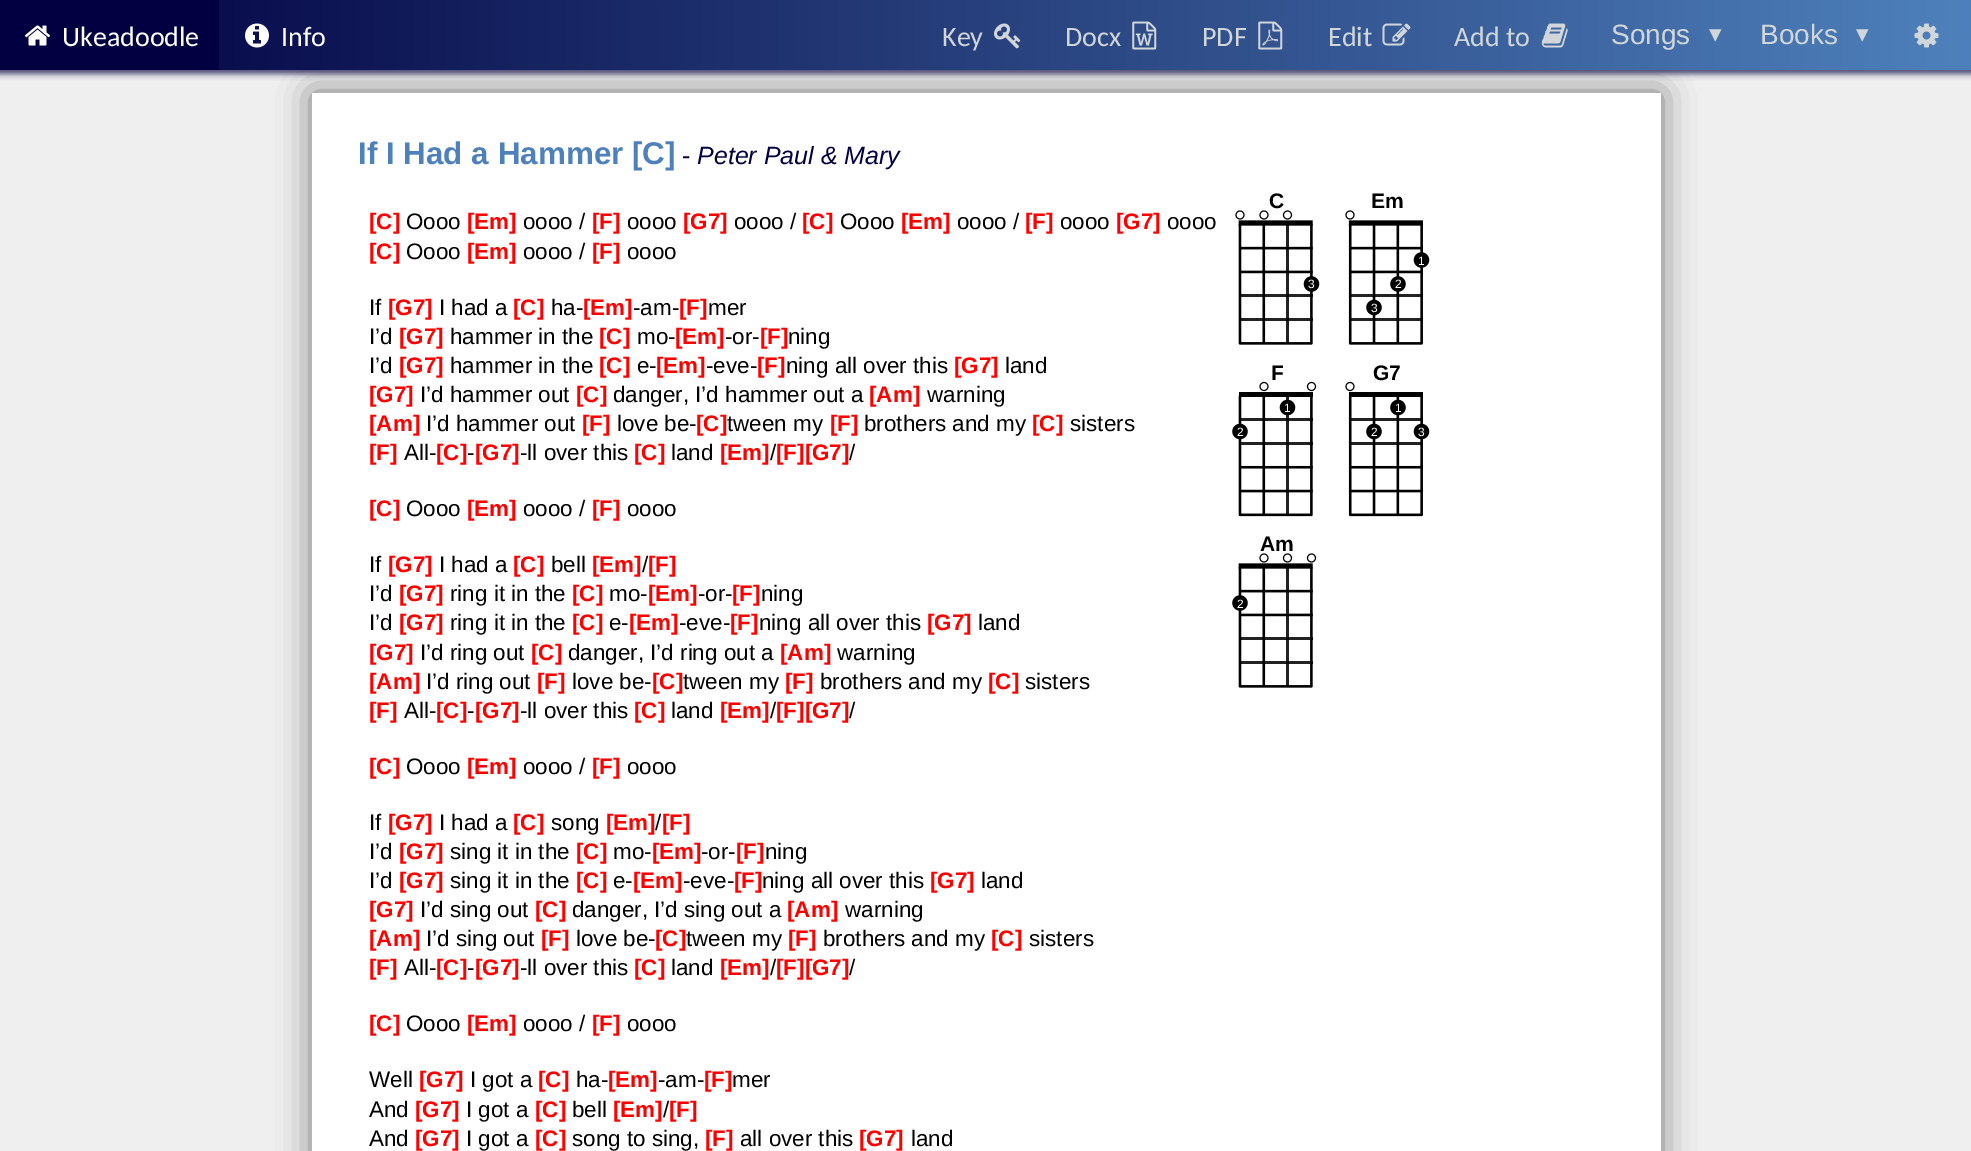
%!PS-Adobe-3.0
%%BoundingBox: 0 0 1971 1151
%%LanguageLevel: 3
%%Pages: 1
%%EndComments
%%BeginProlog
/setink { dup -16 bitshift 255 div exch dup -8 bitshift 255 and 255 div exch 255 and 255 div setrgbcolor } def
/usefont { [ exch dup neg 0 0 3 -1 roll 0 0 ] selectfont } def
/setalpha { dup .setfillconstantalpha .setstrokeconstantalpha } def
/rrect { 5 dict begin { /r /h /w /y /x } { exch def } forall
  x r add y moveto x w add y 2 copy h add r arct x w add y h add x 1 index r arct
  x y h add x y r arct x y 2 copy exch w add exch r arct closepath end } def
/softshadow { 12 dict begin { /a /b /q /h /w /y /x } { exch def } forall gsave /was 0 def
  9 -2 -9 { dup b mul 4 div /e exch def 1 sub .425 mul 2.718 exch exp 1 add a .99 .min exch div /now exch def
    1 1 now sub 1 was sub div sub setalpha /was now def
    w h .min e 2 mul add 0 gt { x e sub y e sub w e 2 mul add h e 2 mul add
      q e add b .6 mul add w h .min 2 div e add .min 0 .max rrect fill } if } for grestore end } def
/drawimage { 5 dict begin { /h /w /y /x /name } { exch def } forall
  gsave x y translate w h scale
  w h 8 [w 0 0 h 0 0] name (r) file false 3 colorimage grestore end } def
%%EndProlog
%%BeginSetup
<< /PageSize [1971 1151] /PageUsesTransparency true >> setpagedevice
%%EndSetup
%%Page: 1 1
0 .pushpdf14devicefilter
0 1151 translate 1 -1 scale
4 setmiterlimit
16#EFEFEF setink
0 0 1971 1151 rectfill
16#020040 setink
-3 -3 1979 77 0 3 0.7 softshadow
16#000000 setink
312 93 1349 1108 0 16.5 0.5 softshadow
gsave 219 0 moveto 1971 0 lineto 1971 70 lineto 219 70 lineto closepath clip newpath
<< /ShadingType 2 /ColorSpace /DeviceRGB /Coords [0 35 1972 35] /Extend [true true] /Function << /FunctionType 2 /Domain [0 1] /C0 [0.008 0 0.251] /C1 [0.306 0.506 0.733] /N 1 >> >> shfill grestore
16#020040 setink
0 0 219 70 rectfill
(img1.raw) 24 25 27 21 drawimage
/Carlito-Regular 28 usefont
16#FFFFFF setink
62 46 moveto (Ukeadoodle) show
(img2.raw) 245 23 24 25 drawimage
281 46 moveto (Info) show
16#D1D6DA setink
942 46 moveto (Key) show
(img3.raw) 994 23 27 26 drawimage
1065 46 moveto (Docx) show
(img4.raw) 1132 21 25 29 drawimage
1202 46 moveto (PDF) show
(img5.raw) 1258 21 25 29 drawimage
1328 46 moveto (Edit) show
(img6.raw) 1382 23 29 23 drawimage
1454 46 moveto (Add to) show
(img7.raw) 1541 23 27 25 drawimage
/LiberationSans-Regular 28 usefont
1611 44 moveto (Songs) show
/DejaVuSans-Regular 25 usefont
1709 42 moveto (▾) show
/LiberationSans-Regular 28 usefont
1760 44 moveto (Books) show
/DejaVuSans-Regular 25 usefont
1856 42 moveto (▾) show
(img8.raw) 1914 23 25 25 drawimage
16#FFFFFF setink
312 93 1349 1058 rectfill
/LiberationSans-Bold 31.4 usefont
16#4E81BB setink
358 164 moveto (If I Had a Hammer [C]) show
/LiberationSans-Regular 25 usefont
16#020040 setink
682 164 moveto (-) show
/LiberationSans-Italic 25 usefont
697 164 moveto (Peter Paul & Mary) show
/LiberationSans-Bold 22.4 usefont
16#FF0000 setink
369 229 moveto ([C]) show
/LiberationSans-Regular 22.4 usefont
16#000000 setink
406 229 moveto (Oooo) show
/LiberationSans-Bold 22.4 usefont
16#FF0000 setink
467 229 moveto ([Em]) show
/LiberationSans-Regular 22.4 usefont
16#000000 setink
523 229 moveto (oooo /) show
/LiberationSans-Bold 22.4 usefont
16#FF0000 setink
592 229 moveto ([F]) show
/LiberationSans-Regular 22.4 usefont
16#000000 setink
627 229 moveto (oooo) show
/LiberationSans-Bold 22.4 usefont
16#FF0000 setink
683 229 moveto ([G7]) show
/LiberationSans-Regular 22.4 usefont
16#000000 setink
734 229 moveto (oooo /) show
/LiberationSans-Bold 22.4 usefont
16#FF0000 setink
802 229 moveto ([C]) show
/LiberationSans-Regular 22.4 usefont
16#000000 setink
840 229 moveto (Oooo) show
/LiberationSans-Bold 22.4 usefont
16#FF0000 setink
901 229 moveto ([Em]) show
/LiberationSans-Regular 22.4 usefont
16#000000 setink
957 229 moveto (oooo /) show
/LiberationSans-Bold 22.4 usefont
16#FF0000 setink
1025 229 moveto ([F]) show
/LiberationSans-Regular 22.4 usefont
16#000000 setink
1060 229 moveto (oooo) show
/LiberationSans-Bold 22.4 usefont
16#FF0000 setink
1116 229 moveto ([G7]) show
/LiberationSans-Regular 22.4 usefont
16#000000 setink
1167 229 moveto (oooo) show
/LiberationSans-Bold 22.4 usefont
16#FF0000 setink
369 259 moveto ([C]) show
/LiberationSans-Regular 22.4 usefont
16#000000 setink
406 259 moveto (Oooo) show
/LiberationSans-Bold 22.4 usefont
16#FF0000 setink
467 259 moveto ([Em]) show
/LiberationSans-Regular 22.4 usefont
16#000000 setink
523 259 moveto (oooo /) show
/LiberationSans-Bold 22.4 usefont
16#FF0000 setink
592 259 moveto ([F]) show
/LiberationSans-Regular 22.4 usefont
16#000000 setink
627 259 moveto (oooo) show
369 315 moveto (If) show
/LiberationSans-Bold 22.4 usefont
16#FF0000 setink
388 315 moveto ([G7]) show
/LiberationSans-Regular 22.4 usefont
16#000000 setink
439 315 moveto (I had a) show
/LiberationSans-Bold 22.4 usefont
16#FF0000 setink
513 315 moveto ([C]) show
/LiberationSans-Regular 22.4 usefont
16#000000 setink
551 315 moveto (ha-) show
/LiberationSans-Bold 22.4 usefont
16#FF0000 setink
583 315 moveto ([Em]) show
/LiberationSans-Regular 22.4 usefont
16#000000 setink
633 315 moveto (-am-) show
/LiberationSans-Bold 22.4 usefont
16#FF0000 setink
679 315 moveto ([F]) show
/LiberationSans-Regular 22.4 usefont
16#000000 setink
708 315 moveto (mer) show
369 344 moveto (I’d) show
/LiberationSans-Bold 22.4 usefont
16#FF0000 setink
399 344 moveto ([G7]) show
/LiberationSans-Regular 22.4 usefont
16#000000 setink
450 344 moveto (hammer in the) show
/LiberationSans-Bold 22.4 usefont
16#FF0000 setink
599 344 moveto ([C]) show
/LiberationSans-Regular 22.4 usefont
16#000000 setink
637 344 moveto (mo-) show
/LiberationSans-Bold 22.4 usefont
16#FF0000 setink
675 344 moveto ([Em]) show
/LiberationSans-Regular 22.4 usefont
16#000000 setink
725 344 moveto (-or-) show
/LiberationSans-Bold 22.4 usefont
16#FF0000 setink
760 344 moveto ([F]) show
/LiberationSans-Regular 22.4 usefont
16#000000 setink
788 344 moveto (ning) show
369 373 moveto (I’d) show
/LiberationSans-Bold 22.4 usefont
16#FF0000 setink
399 373 moveto ([G7]) show
/LiberationSans-Regular 22.4 usefont
16#000000 setink
450 373 moveto (hammer in the) show
/LiberationSans-Bold 22.4 usefont
16#FF0000 setink
599 373 moveto ([C]) show
/LiberationSans-Regular 22.4 usefont
16#000000 setink
637 373 moveto (e-) show
/LiberationSans-Bold 22.4 usefont
16#FF0000 setink
656 373 moveto ([Em]) show
/LiberationSans-Regular 22.4 usefont
16#000000 setink
706 373 moveto (-eve-) show
/LiberationSans-Bold 22.4 usefont
16#FF0000 setink
757 373 moveto ([F]) show
/LiberationSans-Regular 22.4 usefont
16#000000 setink
786 373 moveto (ning all over this) show
/LiberationSans-Bold 22.4 usefont
16#FF0000 setink
954 373 moveto ([G7]) show
/LiberationSans-Regular 22.4 usefont
16#000000 setink
1005 373 moveto (land) show
/LiberationSans-Bold 22.4 usefont
16#FF0000 setink
369 402 moveto ([G7]) show
/LiberationSans-Regular 22.4 usefont
16#000000 setink
420 402 moveto (I’d hammer out) show
/LiberationSans-Bold 22.4 usefont
16#FF0000 setink
576 402 moveto ([C]) show
/LiberationSans-Regular 22.4 usefont
16#000000 setink
613 402 moveto (danger, I’d hammer out a) show
/LiberationSans-Bold 22.4 usefont
16#FF0000 setink
869 402 moveto ([Am]) show
/LiberationSans-Regular 22.4 usefont
16#000000 setink
927 402 moveto (warning) show
/LiberationSans-Bold 22.4 usefont
16#FF0000 setink
369 431 moveto ([Am]) show
/LiberationSans-Regular 22.4 usefont
16#000000 setink
426 431 moveto (I’d hammer out) show
/LiberationSans-Bold 22.4 usefont
16#FF0000 setink
582 431 moveto ([F]) show
/LiberationSans-Regular 22.4 usefont
16#000000 setink
617 431 moveto (love be-) show
/LiberationSans-Bold 22.4 usefont
16#FF0000 setink
696 431 moveto ([C]) show
/LiberationSans-Regular 22.4 usefont
16#000000 setink
727 431 moveto (tween my) show
/LiberationSans-Bold 22.4 usefont
16#FF0000 setink
830 431 moveto ([F]) show
/LiberationSans-Regular 22.4 usefont
16#000000 setink
864 431 moveto (brothers and my) show
/LiberationSans-Bold 22.4 usefont
16#FF0000 setink
1032 431 moveto ([C]) show
/LiberationSans-Regular 22.4 usefont
16#000000 setink
1070 431 moveto (sisters) show
/LiberationSans-Bold 22.4 usefont
16#FF0000 setink
369 460 moveto ([F]) show
/LiberationSans-Regular 22.4 usefont
16#000000 setink
404 460 moveto (All-) show
/LiberationSans-Bold 22.4 usefont
16#FF0000 setink
436 460 moveto ([C]) show
475 460 moveto ([G7]) show
/LiberationSans-Regular 22.4 usefont
16#000000 setink
520 460 moveto (-ll over this) show
/LiberationSans-Bold 22.4 usefont
16#FF0000 setink
634 460 moveto ([C]) show
/LiberationSans-Regular 22.4 usefont
16#000000 setink
671 460 moveto (land) show
/LiberationSans-Bold 22.4 usefont
16#FF0000 setink
720 460 moveto ([Em] [F][G7]) show
/LiberationSans-Regular 22.4 usefont
16#000000 setink
[
    [(-) 467 460]
    [(/) 770 460]
    [(/) 849 460]
] { aload pop moveto show } forall
/LiberationSans-Bold 22.4 usefont
16#FF0000 setink
369 516 moveto ([C]) show
/LiberationSans-Regular 22.4 usefont
16#000000 setink
406 516 moveto (Oooo) show
/LiberationSans-Bold 22.4 usefont
16#FF0000 setink
467 516 moveto ([Em]) show
/LiberationSans-Regular 22.4 usefont
16#000000 setink
523 516 moveto (oooo /) show
/LiberationSans-Bold 22.4 usefont
16#FF0000 setink
592 516 moveto ([F]) show
/LiberationSans-Regular 22.4 usefont
16#000000 setink
627 516 moveto (oooo) show
369 572 moveto (If) show
/LiberationSans-Bold 22.4 usefont
16#FF0000 setink
388 572 moveto ([G7]) show
/LiberationSans-Regular 22.4 usefont
16#000000 setink
439 572 moveto (I had a) show
/LiberationSans-Bold 22.4 usefont
16#FF0000 setink
513 572 moveto ([C]) show
/LiberationSans-Regular 22.4 usefont
16#000000 setink
551 572 moveto (bell) show
/LiberationSans-Bold 22.4 usefont
16#FF0000 setink
592 572 moveto ([Em] [F]) show
/LiberationSans-Regular 22.4 usefont
16#000000 setink
642 572 moveto (/) show
369 601 moveto (I’d) show
/LiberationSans-Bold 22.4 usefont
16#FF0000 setink
399 601 moveto ([G7]) show
/LiberationSans-Regular 22.4 usefont
16#000000 setink
450 601 moveto (ring it in the) show
/LiberationSans-Bold 22.4 usefont
16#FF0000 setink
572 601 moveto ([C]) show
/LiberationSans-Regular 22.4 usefont
16#000000 setink
609 601 moveto (mo-) show
/LiberationSans-Bold 22.4 usefont
16#FF0000 setink
648 601 moveto ([Em]) show
/LiberationSans-Regular 22.4 usefont
16#000000 setink
698 601 moveto (-or-) show
/LiberationSans-Bold 22.4 usefont
16#FF0000 setink
732 601 moveto ([F]) show
/LiberationSans-Regular 22.4 usefont
16#000000 setink
761 601 moveto (ning) show
369 630 moveto (I’d) show
/LiberationSans-Bold 22.4 usefont
16#FF0000 setink
399 630 moveto ([G7]) show
/LiberationSans-Regular 22.4 usefont
16#000000 setink
450 630 moveto (ring it in the) show
/LiberationSans-Bold 22.4 usefont
16#FF0000 setink
572 630 moveto ([C]) show
/LiberationSans-Regular 22.4 usefont
16#000000 setink
609 630 moveto (e-) show
/LiberationSans-Bold 22.4 usefont
16#FF0000 setink
629 630 moveto ([Em]) show
/LiberationSans-Regular 22.4 usefont
16#000000 setink
679 630 moveto (-eve-) show
/LiberationSans-Bold 22.4 usefont
16#FF0000 setink
730 630 moveto ([F]) show
/LiberationSans-Regular 22.4 usefont
16#000000 setink
759 630 moveto (ning all over this) show
/LiberationSans-Bold 22.4 usefont
16#FF0000 setink
927 630 moveto ([G7]) show
/LiberationSans-Regular 22.4 usefont
16#000000 setink
978 630 moveto (land) show
/LiberationSans-Bold 22.4 usefont
16#FF0000 setink
369 660 moveto ([G7]) show
/LiberationSans-Regular 22.4 usefont
16#000000 setink
420 660 moveto (I’d ring out) show
/LiberationSans-Bold 22.4 usefont
16#FF0000 setink
531 660 moveto ([C]) show
/LiberationSans-Regular 22.4 usefont
16#000000 setink
568 660 moveto (danger, I’d ring out a) show
/LiberationSans-Bold 22.4 usefont
16#FF0000 setink
780 660 moveto ([Am]) show
/LiberationSans-Regular 22.4 usefont
16#000000 setink
837 660 moveto (warning) show
/LiberationSans-Bold 22.4 usefont
16#FF0000 setink
369 689 moveto ([Am]) show
/LiberationSans-Regular 22.4 usefont
16#000000 setink
426 689 moveto (I’d ring out) show
/LiberationSans-Bold 22.4 usefont
16#FF0000 setink
537 689 moveto ([F]) show
/LiberationSans-Regular 22.4 usefont
16#000000 setink
572 689 moveto (love be-) show
/LiberationSans-Bold 22.4 usefont
16#FF0000 setink
652 689 moveto ([C]) show
/LiberationSans-Regular 22.4 usefont
16#000000 setink
683 689 moveto (tween my) show
/LiberationSans-Bold 22.4 usefont
16#FF0000 setink
785 689 moveto ([F]) show
/LiberationSans-Regular 22.4 usefont
16#000000 setink
820 689 moveto (brothers and my) show
/LiberationSans-Bold 22.4 usefont
16#FF0000 setink
988 689 moveto ([C]) show
/LiberationSans-Regular 22.4 usefont
16#000000 setink
1025 689 moveto (sisters) show
/LiberationSans-Bold 22.4 usefont
16#FF0000 setink
369 718 moveto ([F]) show
/LiberationSans-Regular 22.4 usefont
16#000000 setink
404 718 moveto (All-) show
/LiberationSans-Bold 22.4 usefont
16#FF0000 setink
436 718 moveto ([C]) show
475 718 moveto ([G7]) show
/LiberationSans-Regular 22.4 usefont
16#000000 setink
520 718 moveto (-ll over this) show
/LiberationSans-Bold 22.4 usefont
16#FF0000 setink
634 718 moveto ([C]) show
/LiberationSans-Regular 22.4 usefont
16#000000 setink
671 718 moveto (land) show
/LiberationSans-Bold 22.4 usefont
16#FF0000 setink
720 718 moveto ([Em] [F][G7]) show
/LiberationSans-Regular 22.4 usefont
16#000000 setink
[
    [(-) 467 718]
    [(/) 770 718]
    [(/) 849 718]
] { aload pop moveto show } forall
/LiberationSans-Bold 22.4 usefont
16#FF0000 setink
369 774 moveto ([C]) show
/LiberationSans-Regular 22.4 usefont
16#000000 setink
406 774 moveto (Oooo) show
/LiberationSans-Bold 22.4 usefont
16#FF0000 setink
467 774 moveto ([Em]) show
/LiberationSans-Regular 22.4 usefont
16#000000 setink
523 774 moveto (oooo /) show
/LiberationSans-Bold 22.4 usefont
16#FF0000 setink
592 774 moveto ([F]) show
/LiberationSans-Regular 22.4 usefont
16#000000 setink
627 774 moveto (oooo) show
369 830 moveto (If) show
/LiberationSans-Bold 22.4 usefont
16#FF0000 setink
388 830 moveto ([G7]) show
/LiberationSans-Regular 22.4 usefont
16#000000 setink
439 830 moveto (I had a) show
/LiberationSans-Bold 22.4 usefont
16#FF0000 setink
513 830 moveto ([C]) show
606 830 moveto ([Em] [F]) show
/LiberationSans-Regular 22.4 usefont
16#000000 setink
[
    [(song) 551 830]
    [(/) 655 830]
    [(I’d) 369 859]
] { aload pop moveto show } forall
/LiberationSans-Bold 22.4 usefont
16#FF0000 setink
399 859 moveto ([G7]) show
/LiberationSans-Regular 22.4 usefont
16#000000 setink
450 859 moveto (sing it in the) show
/LiberationSans-Bold 22.4 usefont
16#FF0000 setink
576 859 moveto ([C]) show
/LiberationSans-Regular 22.4 usefont
16#000000 setink
613 859 moveto (mo-) show
/LiberationSans-Bold 22.4 usefont
16#FF0000 setink
652 859 moveto ([Em]) show
/LiberationSans-Regular 22.4 usefont
16#000000 setink
701 859 moveto (-or-) show
/LiberationSans-Bold 22.4 usefont
16#FF0000 setink
736 859 moveto ([F]) show
/LiberationSans-Regular 22.4 usefont
16#000000 setink
765 859 moveto (ning) show
369 888 moveto (I’d) show
/LiberationSans-Bold 22.4 usefont
16#FF0000 setink
399 888 moveto ([G7]) show
/LiberationSans-Regular 22.4 usefont
16#000000 setink
450 888 moveto (sing it in the) show
/LiberationSans-Bold 22.4 usefont
16#FF0000 setink
576 888 moveto ([C]) show
/LiberationSans-Regular 22.4 usefont
16#000000 setink
613 888 moveto (e-) show
/LiberationSans-Bold 22.4 usefont
16#FF0000 setink
633 888 moveto ([Em]) show
/LiberationSans-Regular 22.4 usefont
16#000000 setink
683 888 moveto (-eve-) show
/LiberationSans-Bold 22.4 usefont
16#FF0000 setink
734 888 moveto ([F]) show
/LiberationSans-Regular 22.4 usefont
16#000000 setink
762 888 moveto (ning all over this) show
/LiberationSans-Bold 22.4 usefont
16#FF0000 setink
930 888 moveto ([G7]) show
/LiberationSans-Regular 22.4 usefont
16#000000 setink
981 888 moveto (land) show
/LiberationSans-Bold 22.4 usefont
16#FF0000 setink
369 917 moveto ([G7]) show
/LiberationSans-Regular 22.4 usefont
16#000000 setink
420 917 moveto (I’d sing out) show
/LiberationSans-Bold 22.4 usefont
16#FF0000 setink
535 917 moveto ([C]) show
/LiberationSans-Regular 22.4 usefont
16#000000 setink
572 917 moveto (danger, I’d sing out a) show
/LiberationSans-Bold 22.4 usefont
16#FF0000 setink
787 917 moveto ([Am]) show
/LiberationSans-Regular 22.4 usefont
16#000000 setink
845 917 moveto (warning) show
/LiberationSans-Bold 22.4 usefont
16#FF0000 setink
369 946 moveto ([Am]) show
/LiberationSans-Regular 22.4 usefont
16#000000 setink
426 946 moveto (I’d sing out) show
/LiberationSans-Bold 22.4 usefont
16#FF0000 setink
541 946 moveto ([F]) show
/LiberationSans-Regular 22.4 usefont
16#000000 setink
576 946 moveto (love be-) show
/LiberationSans-Bold 22.4 usefont
16#FF0000 setink
655 946 moveto ([C]) show
/LiberationSans-Regular 22.4 usefont
16#000000 setink
686 946 moveto (tween my) show
/LiberationSans-Bold 22.4 usefont
16#FF0000 setink
788 946 moveto ([F]) show
/LiberationSans-Regular 22.4 usefont
16#000000 setink
823 946 moveto (brothers and my) show
/LiberationSans-Bold 22.4 usefont
16#FF0000 setink
991 946 moveto ([C]) show
/LiberationSans-Regular 22.4 usefont
16#000000 setink
1029 946 moveto (sisters) show
/LiberationSans-Bold 22.4 usefont
16#FF0000 setink
369 975 moveto ([F]) show
/LiberationSans-Regular 22.4 usefont
16#000000 setink
404 975 moveto (All-) show
/LiberationSans-Bold 22.4 usefont
16#FF0000 setink
436 975 moveto ([C]) show
475 975 moveto ([G7]) show
/LiberationSans-Regular 22.4 usefont
16#000000 setink
520 975 moveto (-ll over this) show
/LiberationSans-Bold 22.4 usefont
16#FF0000 setink
634 975 moveto ([C]) show
/LiberationSans-Regular 22.4 usefont
16#000000 setink
671 975 moveto (land) show
/LiberationSans-Bold 22.4 usefont
16#FF0000 setink
720 975 moveto ([Em] [F][G7]) show
/LiberationSans-Regular 22.4 usefont
16#000000 setink
[
    [(-) 467 975]
    [(/) 770 975]
    [(/) 849 975]
] { aload pop moveto show } forall
/LiberationSans-Bold 22.4 usefont
16#FF0000 setink
369 1031 moveto ([C]) show
/LiberationSans-Regular 22.4 usefont
16#000000 setink
406 1031 moveto (Oooo) show
/LiberationSans-Bold 22.4 usefont
16#FF0000 setink
467 1031 moveto ([Em]) show
/LiberationSans-Regular 22.4 usefont
16#000000 setink
523 1031 moveto (oooo /) show
/LiberationSans-Bold 22.4 usefont
16#FF0000 setink
592 1031 moveto ([F]) show
/LiberationSans-Regular 22.4 usefont
16#000000 setink
627 1031 moveto (oooo) show
369 1087 moveto (Well) show
/LiberationSans-Bold 22.4 usefont
16#FF0000 setink
419 1087 moveto ([G7]) show
/LiberationSans-Regular 22.4 usefont
16#000000 setink
470 1087 moveto (I got a) show
/LiberationSans-Bold 22.4 usefont
16#FF0000 setink
538 1087 moveto ([C]) show
/LiberationSans-Regular 22.4 usefont
16#000000 setink
576 1087 moveto (ha-) show
/LiberationSans-Bold 22.4 usefont
16#FF0000 setink
608 1087 moveto ([Em]) show
/LiberationSans-Regular 22.4 usefont
16#000000 setink
658 1087 moveto (-am-) show
/LiberationSans-Bold 22.4 usefont
16#FF0000 setink
704 1087 moveto ([F]) show
/LiberationSans-Regular 22.4 usefont
16#000000 setink
732 1087 moveto (mer) show
369 1117 moveto (And) show
/LiberationSans-Bold 22.4 usefont
16#FF0000 setink
415 1117 moveto ([G7]) show
535 1117 moveto ([C]) show
/LiberationSans-Regular 22.4 usefont
16#000000 setink
572 1117 moveto (bell) show
/LiberationSans-Bold 22.4 usefont
16#FF0000 setink
613 1117 moveto ([Em] [F]) show
/LiberationSans-Regular 22.4 usefont
16#000000 setink
[
    [(I got a) 466 1117]
    [(/) 663 1117]
    [(And) 369 1146]
] { aload pop moveto show } forall
/LiberationSans-Bold 22.4 usefont
16#FF0000 setink
415 1146 moveto ([G7]) show
/LiberationSans-Regular 22.4 usefont
16#000000 setink
466 1146 moveto (I got a) show
/LiberationSans-Bold 22.4 usefont
16#FF0000 setink
535 1146 moveto ([C]) show
/LiberationSans-Regular 22.4 usefont
16#000000 setink
572 1146 moveto (song to sing,) show
/LiberationSans-Bold 22.4 usefont
16#FF0000 setink
705 1146 moveto ([F]) show
/LiberationSans-Regular 22.4 usefont
16#000000 setink
740 1146 moveto (all over this) show
/LiberationSans-Bold 22.4 usefont
16#FF0000 setink
859 1146 moveto ([G7]) show
/LiberationSans-Regular 22.4 usefont
16#000000 setink
911 1146 moveto (land) show
/LiberationSans-Bold 21 usefont
1269 208 moveto (C) show
1371 208 moveto (Em) show
(img9.raw) 1235 210 85 135 drawimage
(img10.raw) 1345 210 85 135 drawimage
/LiberationSans-Regular 12 usefont
16#FFFFFF setink
[
    [(1) 1418 265]
    [(3) 1308 288]
    [(2) 1395 288]
    [(3) 1371 312]
] { aload pop moveto show } forall
/LiberationSans-Bold 21 usefont
16#000000 setink
1271 380 moveto (F) show
1373 380 moveto (G7) show
(img11.raw) 1232 381 85 136 drawimage
(img12.raw) 1345 381 85 136 drawimage
/LiberationSans-Regular 12 usefont
16#FFFFFF setink
[
    [(1) 1284 412]
    [(1) 1395 412]
    [(2) 1237 436]
    [(2) 1371 436]
    [(3) 1418 436]
] { aload pop moveto show } forall
/LiberationSans-Bold 21 usefont
16#000000 setink
1260 551 moveto (Am) show
(img13.raw) 1232 553 85 135 drawimage
/LiberationSans-Regular 12 usefont
16#FFFFFF setink
1237 608 moveto (2) show
.poppdf14devicefilter showpage
%%EOF
